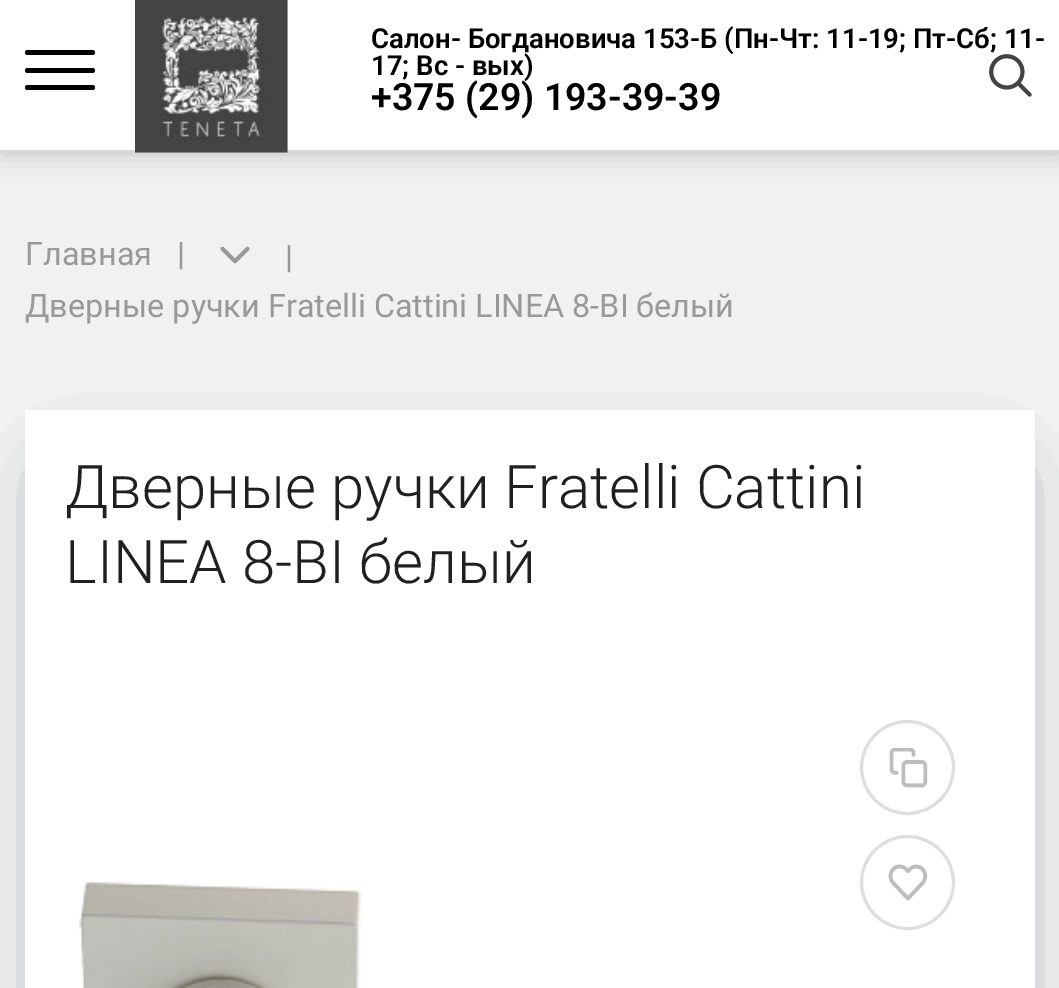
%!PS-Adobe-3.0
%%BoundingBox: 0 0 1059 988
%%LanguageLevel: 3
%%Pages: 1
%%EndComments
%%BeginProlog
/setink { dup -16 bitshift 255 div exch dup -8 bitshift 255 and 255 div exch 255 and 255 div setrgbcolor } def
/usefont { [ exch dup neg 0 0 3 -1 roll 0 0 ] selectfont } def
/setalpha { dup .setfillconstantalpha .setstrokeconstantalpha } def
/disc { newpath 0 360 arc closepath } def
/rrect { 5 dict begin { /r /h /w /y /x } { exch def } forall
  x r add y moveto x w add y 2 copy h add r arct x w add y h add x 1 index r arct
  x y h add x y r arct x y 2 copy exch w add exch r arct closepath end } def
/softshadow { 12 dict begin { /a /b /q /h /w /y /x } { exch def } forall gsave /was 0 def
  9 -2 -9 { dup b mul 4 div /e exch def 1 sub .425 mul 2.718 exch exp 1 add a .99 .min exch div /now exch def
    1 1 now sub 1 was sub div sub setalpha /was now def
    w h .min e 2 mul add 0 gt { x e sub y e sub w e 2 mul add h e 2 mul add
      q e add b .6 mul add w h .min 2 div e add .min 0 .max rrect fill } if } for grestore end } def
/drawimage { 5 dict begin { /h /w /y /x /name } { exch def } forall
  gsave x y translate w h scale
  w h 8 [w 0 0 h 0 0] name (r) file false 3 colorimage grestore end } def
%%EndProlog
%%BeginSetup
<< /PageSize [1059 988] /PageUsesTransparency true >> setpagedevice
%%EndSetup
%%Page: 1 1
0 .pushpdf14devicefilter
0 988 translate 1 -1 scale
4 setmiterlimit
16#F1F1F1 setink
0 0 1059 988 rectfill
16#BDBDBD setink
0 3 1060 150 0 12.5 1 softshadow
16#FFFFFF setink
0 0 1059 150 rectfill
16#000000 setink
25 68 70 5 2.5 rrect fill
25 50 70 5 2.5 rrect fill
25 85 70 5 2.5 rrect fill
(img1.raw) 135 0 153 153 drawimage
(img2.raw) 989 54 43 43 drawimage
/Roboto-SemiBold 27.5 usefont
371 48 moveto (Салон- Богдановича 153-Б \(Пн-Чт: 11-19; Пт-Сб; 11-) show
371 75 moveto (17; Вс - вых\)) show
/Roboto-SemiBold 37.5 usefont
371 110 moveto (+375 \(29\) 193-39-39) show
/Roboto-Regular 32.4 usefont
16#999999 setink
25 265 moveto (Главная) show
177 265 moveto (|) show
(img3.raw) 220 246 30 18 drawimage
285 268 moveto (|) show
25 317 moveto (Дверные ручки Fratelli Cattini LINEA 8-BI белый) show
16#3D4851 setink
63 478 935 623 0 37.5 0.75 softshadow
16#FFFFFF setink
25 410 1010 578 rectfill
/Roboto-Light 60 usefont
16#202020 setink
65 508 moveto (Дверные ручки Fratelli Cattini) show
65 583 moveto (LINEA 8-BI белый) show
(img4.raw) 79 881 283 107 drawimage
16#DEDEDE setink
3 setlinewidth
907.5 767.5 46 disc stroke
(img5.raw) 889 748 39 40 drawimage
907.5 882.5 46 disc stroke
(img6.raw) 888 864 40 37 drawimage
.poppdf14devicefilter showpage
%%EOF
